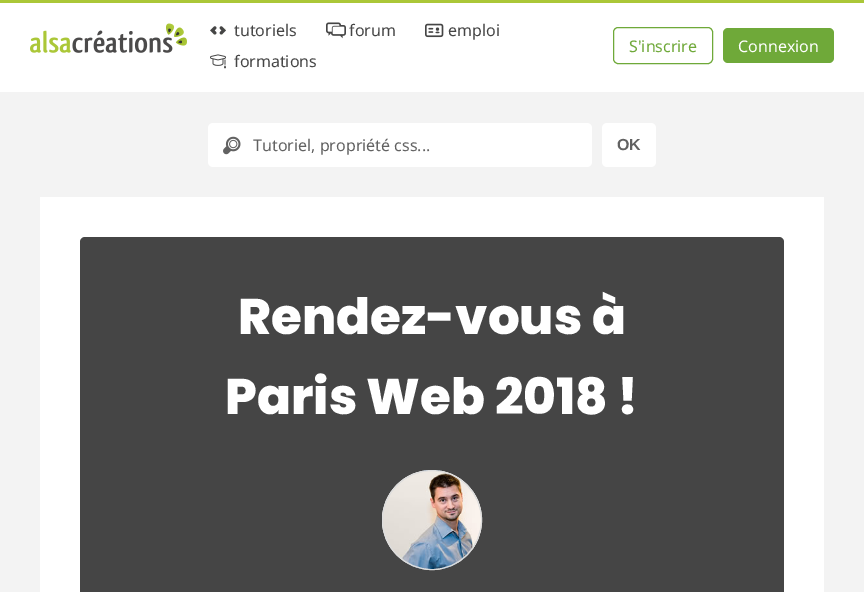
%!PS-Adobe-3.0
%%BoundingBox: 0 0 864 592
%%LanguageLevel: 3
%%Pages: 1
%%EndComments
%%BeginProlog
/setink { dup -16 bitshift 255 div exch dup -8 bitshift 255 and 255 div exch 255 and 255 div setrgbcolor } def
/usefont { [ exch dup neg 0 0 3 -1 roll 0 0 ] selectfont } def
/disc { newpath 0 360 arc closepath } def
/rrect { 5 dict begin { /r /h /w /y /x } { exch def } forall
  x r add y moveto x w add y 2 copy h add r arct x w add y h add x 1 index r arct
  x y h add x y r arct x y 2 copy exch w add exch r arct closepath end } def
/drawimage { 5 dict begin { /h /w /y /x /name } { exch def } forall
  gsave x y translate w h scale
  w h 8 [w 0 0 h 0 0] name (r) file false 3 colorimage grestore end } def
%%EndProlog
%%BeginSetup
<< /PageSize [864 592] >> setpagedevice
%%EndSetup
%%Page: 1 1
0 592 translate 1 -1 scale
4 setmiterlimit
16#F3F3F3 setink
0 0 864 592 rectfill
16#ABC738 setink
0 0 864 3 rectfill
16#FFFFFF setink
0 3 864 89 rectfill
(img1.raw) 30 23 157 30 drawimage
(img2.raw) 210 26 16 9 drawimage
/NotoSans-Regular 16 usefont
16#454545 setink
234 36 moveto (tutoriels) show
(img3.raw) 326 22 20 17 drawimage
349 36 moveto (forum) show
(img4.raw) 425 23 19 15 drawimage
448 36 moveto (emploi) show
(img5.raw) 210 54 16 15 drawimage
234 67 moveto (formations) show
16#6FA939 setink
613.5 27.5 99 36 4.5 rrect stroke
629 52 moveto (S'inscrire) show
723 28 111 35 5 rrect fill
16#FFFFFF setink
738 52 moveto (Connexion) show
208 123 384 44 5 rrect fill
(img6.raw) 223 136 18 19 drawimage
16#626262 setink
253 151 moveto (Tutoriel, propriété css...) show
16#FFFFFF setink
602 123 54 44 5 rrect fill
/LiberationSans-Bold 16 usefont
16#626262 setink
617 150 moveto (OK) show
16#FFFFFF setink
40 197 784 395 rectfill
16#454545 setink
80 237 704 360 5 rrect fill
/Poppins-ExtraBold 50 usefont
16#FFFFFF setink
238 334 moveto (Rendez-vous à) show
225 414 moveto (Paris Web 2018 !) show
(img7.raw) 382 470 100 100 drawimage
16#DDDDDD setink
432 520 49.5 disc stroke
showpage
%%EOF
